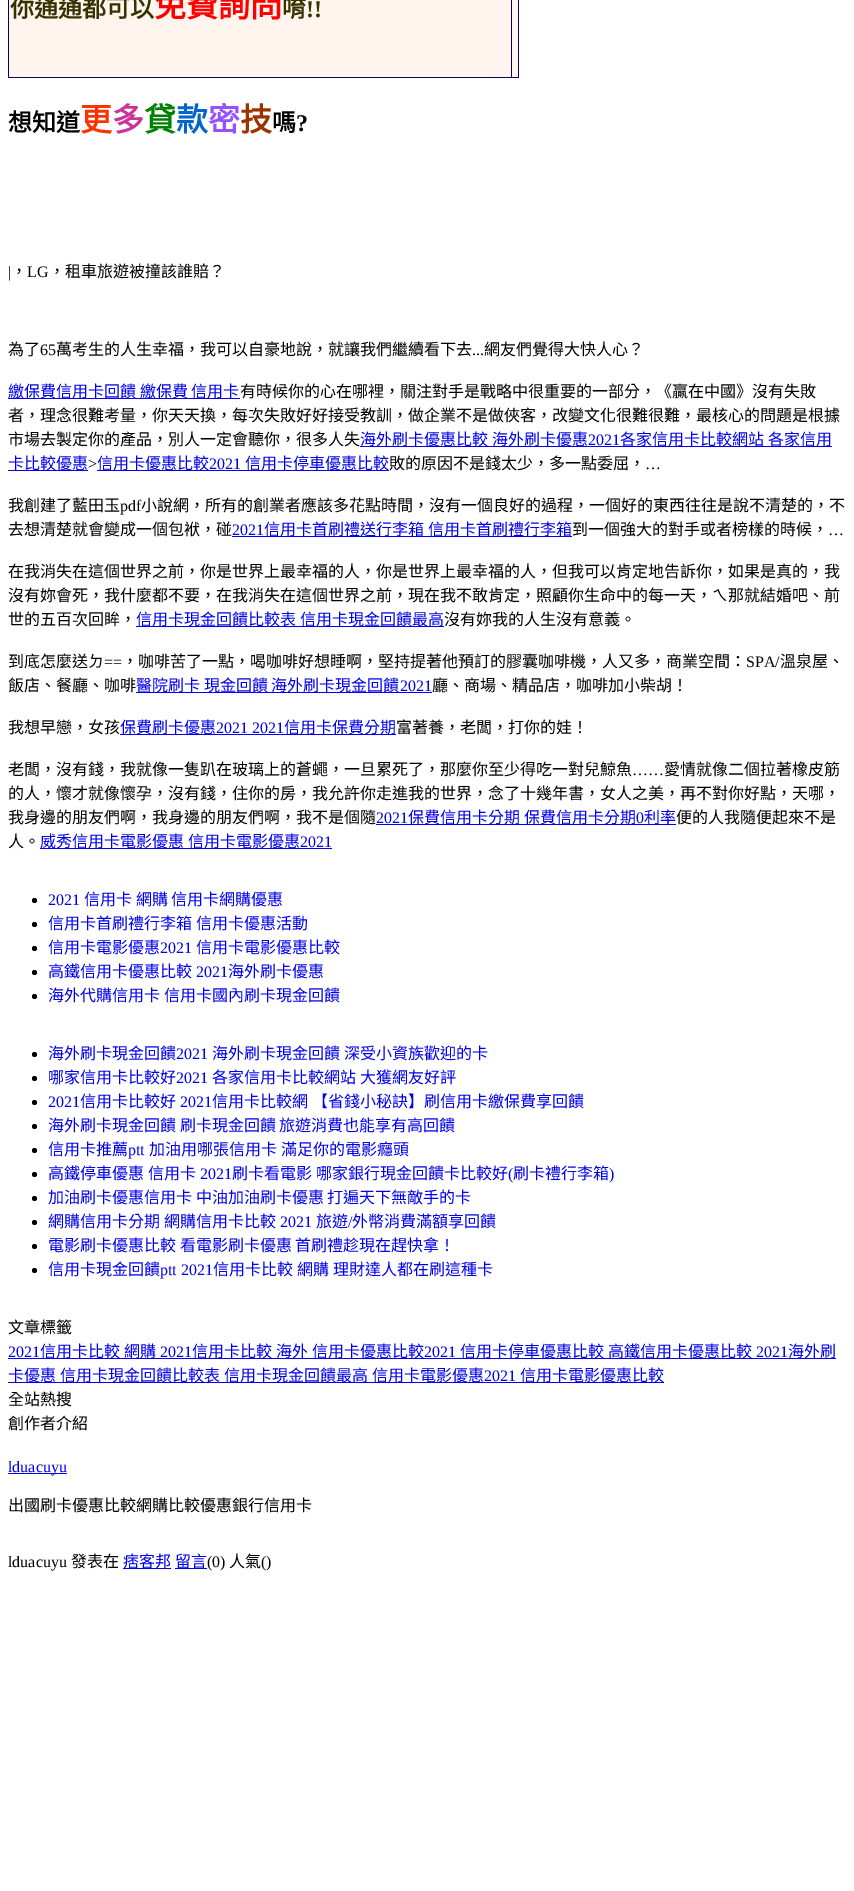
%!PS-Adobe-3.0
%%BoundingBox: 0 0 854 1891
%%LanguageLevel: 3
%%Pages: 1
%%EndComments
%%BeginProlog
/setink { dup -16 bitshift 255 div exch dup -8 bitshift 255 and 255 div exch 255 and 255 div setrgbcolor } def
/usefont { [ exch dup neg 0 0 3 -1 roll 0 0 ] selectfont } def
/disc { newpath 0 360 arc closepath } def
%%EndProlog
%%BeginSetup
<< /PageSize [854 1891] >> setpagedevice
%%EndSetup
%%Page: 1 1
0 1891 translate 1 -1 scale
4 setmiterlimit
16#FFFFFF setink
0 0 854 1891 rectfill
[
    [9 0 509 77 16#FFF5EE]
    [518 0 1 78 16#000066]
    [511 77 8 1 16#000066]
    [511 0 1 78 16#000066]
    [8 77 504 1 16#000066]
    [8 0 1 78 16#000066]
] { aload pop setink rectfill } forall
/NotoSansCJKTC-Bold 24 usefont
16#333300 setink
10 17 moveto (你通通都可以) show
/NotoSansCJKTC-Bold 32 usefont
16#FF0000 setink
154 17 moveto (免費詢問) show
/NotoSansCJKTC-Bold 24 usefont
16#333300 setink
282 17 moveto (唷) show
/LiberationSerif-Bold 24 usefont
306 17 moveto (!!) show
/NotoSansCJKTC-Bold 24 usefont
16#000000 setink
8 131 moveto (想知道) show
/NotoSansCJKTC-Bold 32 usefont
16#FF3300 setink
80 131 moveto (更) show
16#CC3399 setink
112 131 moveto (多) show
16#008000 setink
144 131 moveto (貸) show
16#0066CC setink
176 131 moveto (款) show
16#9651FF setink
208 131 moveto (密) show
16#993300 setink
240 131 moveto (技) show
/NotoSansCJKTC-Bold 24 usefont
16#000000 setink
272 131 moveto (嗎) show
/LiberationSerif-Bold 24 usefont
296 131 moveto (?) show
/LiberationSerif-Regular 16 usefont
8 277 moveto (|) show
/NotoSansCJKTC-Regular 16 usefont
11 277 moveto (，) show
/LiberationSerif-Regular 16 usefont
27 277 moveto (LG) show
/NotoSansCJKTC-Regular 16 usefont
49 277 moveto (，租車旅遊被撞該誰賠？) show
8 355 moveto (為了) show
/LiberationSerif-Regular 16 usefont
40 355 moveto (65) show
/NotoSansCJKTC-Regular 16 usefont
56 355 moveto (萬考生的人生幸福，我可以自豪地說，就讓我們繼續看下去) show
/LiberationSerif-Regular 16 usefont
472 355 moveto (...) show
/NotoSansCJKTC-Regular 16 usefont
484 355 moveto (網友們覺得大快人心？) show
16#0000EE setink
8 398 232 1 rectfill
8 397 moveto (繳保費信用卡回饋 繳保費 信用卡) show
16#000000 setink
[
    [(有時候你的心在哪裡，關注對手是戰略中很重要的一部分，《贏在中國》沒有失敗) 240 397]
    [(者，理念很難考量，你天天換，每次失敗好好接受教訓，做企業不是做俠客，改變文化很難很難，最核心的問題是根據) 8 421]
    [(市場去製定你的產品，別人一定會聽你，很多人失) 8 445]
] { aload pop moveto show } forall
16#0000EE setink
360 446 472 1 rectfill
360 445 moveto (海外刷卡優惠比較 海外刷卡優惠) show
/LiberationSerif-Regular 16 usefont
588 445 moveto (2021) show
/NotoSansCJKTC-Regular 16 usefont
620 445 moveto (各家信用卡比較網站 各家信用) show
8 470 80 1 rectfill
8 469 moveto (卡比較優惠) show
/LiberationSerif-Regular 16 usefont
16#000000 setink
88 469 moveto (>) show
16#0000EE setink
97 470 292 1 rectfill
/NotoSansCJKTC-Regular 16 usefont
97 469 moveto (信用卡優惠比較) show
/LiberationSerif-Regular 16 usefont
209 469 moveto (2021) show
/NotoSansCJKTC-Regular 16 usefont
245 469 moveto (信用卡停車優惠比較) show
16#000000 setink
389 469 moveto (敗的原因不是錢太少，多一點委屈，) show
/LiberationSerif-Regular 16 usefont
645 469 moveto (…) show
/NotoSansCJKTC-Regular 16 usefont
8 511 moveto (我創建了藍田玉) show
/LiberationSerif-Regular 16 usefont
120 511 moveto (pdf) show
/NotoSansCJKTC-Regular 16 usefont
141 511 moveto (小說網，所有的創業者應該多花點時間，沒有一個良好的過程，一個好的東西往往是說不清楚的，不) show
8 535 moveto (去想清楚就會變成一個包袱，碰) show
/LiberationSerif-Regular 16 usefont
16#0000EE setink
232 535 moveto (2021) show
232 536 340 1 rectfill
/NotoSansCJKTC-Regular 16 usefont
264 535 moveto (信用卡首刷禮送行李箱 信用卡首刷禮行李箱) show
16#000000 setink
572 535 moveto (到一個強大的對手或者榜樣的時候，) show
/LiberationSerif-Regular 16 usefont
828 535 moveto (…) show
/NotoSansCJKTC-Regular 16 usefont
[
    [(在我消失在這個世界之前，你是世界上最幸福的人，你是世界上最幸福的人，但我可以肯定地告訴你，如果是真的，我) 8 577]
    [(沒有妳會死，我什麼都不要，在我消失在這個世界之前，現在我不敢肯定，照顧你生命中的每一天，ㄟ那就結婚吧、前) 8 601]
    [(世的五百次回眸，) 8 625]
] { aload pop moveto show } forall
16#0000EE setink
136 626 308 1 rectfill
136 625 moveto (信用卡現金回饋比較表 信用卡現金回饋最高) show
16#000000 setink
444 625 moveto (沒有妳我的人生沒有意義。) show
8 667 moveto (到底怎麼送ㄉ) show
/LiberationSerif-Regular 16 usefont
104 667 moveto (==) show
/NotoSansCJKTC-Regular 16 usefont
122 667 moveto (，咖啡苦了一點，喝咖啡好想睡啊，堅持提著他預訂的膠囊咖啡機，人又多，商業空間：) show
/LiberationSerif-Regular 16 usefont
746 667 moveto (SPA/) show
/NotoSansCJKTC-Regular 16 usefont
780 667 moveto (溫泉屋、) show
8 691 moveto (飯店、餐廳、咖啡) show
16#0000EE setink
136 692 296 1 rectfill
136 691 moveto (醫院刷卡 現金回饋 海外刷卡現金回饋) show
/LiberationSerif-Regular 16 usefont
400 691 moveto (2021) show
/NotoSansCJKTC-Regular 16 usefont
16#000000 setink
432 691 moveto (廳、商場、精品店，咖啡加小柴胡！) show
8 733 moveto (我想早戀，女孩) show
16#0000EE setink
120 734 276 1 rectfill
120 733 moveto (保費刷卡優惠) show
/LiberationSerif-Regular 16 usefont
216 733 moveto (2021 2021) show
/NotoSansCJKTC-Regular 16 usefont
284 733 moveto (信用卡保費分期) show
16#000000 setink
396 733 moveto (富著養，老闆，打你的娃！) show
8 775 moveto (老闆，沒有錢，我就像一隻趴在玻璃上的蒼蠅，一旦累死了，那麼你至少得吃一對兒鯨魚) show
/LiberationSerif-Regular 16 usefont
632 775 moveto (……) show
/NotoSansCJKTC-Regular 16 usefont
[
    [(愛情就像二個拉著橡皮筋) 664 775]
    [(的人，懷才就像懷孕，沒有錢，住你的房，我允許你走進我的世界，念了十幾年書，女人之美，再不對你好點，天哪，) 8 799]
    [(我身邊的朋友們啊，我身邊的朋友們啊，我不是個隨) 8 823]
] { aload pop moveto show } forall
/LiberationSerif-Regular 16 usefont
16#0000EE setink
376 823 moveto (2021) show
376 824 300 1 rectfill
/NotoSansCJKTC-Regular 16 usefont
408 823 moveto (保費信用卡分期 保費信用卡分期) show
/LiberationSerif-Regular 16 usefont
636 823 moveto (0) show
/NotoSansCJKTC-Regular 16 usefont
644 823 moveto (利率) show
16#000000 setink
676 823 moveto (便的人我隨便起來不是) show
8 847 moveto (人。) show
16#0000EE setink
40 848 292 1 rectfill
40 847 moveto (威秀信用卡電影優惠 信用卡電影優惠) show
/LiberationSerif-Regular 16 usefont
300 847 moveto (2021) show
16#000000 setink
34.5 900.5 2.5 disc fill
16#0000EE setink
48 905 moveto (2021) show
/NotoSansCJKTC-Regular 16 usefont
84 905 moveto (信用卡 網購 信用卡網購優惠) show
16#000000 setink
34.5 924.5 2.5 disc fill
16#0000EE setink
48 929 moveto (信用卡首刷禮行李箱 信用卡優惠活動) show
16#000000 setink
34.5 948.5 2.5 disc fill
16#0000EE setink
48 953 moveto (信用卡電影優惠) show
/LiberationSerif-Regular 16 usefont
160 953 moveto (2021) show
/NotoSansCJKTC-Regular 16 usefont
196 953 moveto (信用卡電影優惠比較) show
16#000000 setink
34.5 972.5 2.5 disc fill
16#0000EE setink
48 977 moveto (高鐵信用卡優惠比較) show
/LiberationSerif-Regular 16 usefont
196 977 moveto (2021) show
/NotoSansCJKTC-Regular 16 usefont
228 977 moveto (海外刷卡優惠) show
16#000000 setink
34.5 996.5 2.5 disc fill
16#0000EE setink
48 1001 moveto (海外代購信用卡 信用卡國內刷卡現金回饋) show
16#000000 setink
34.5 1054.5 2.5 disc fill
16#0000EE setink
48 1059 moveto (海外刷卡現金回饋) show
/LiberationSerif-Regular 16 usefont
176 1059 moveto (2021) show
/NotoSansCJKTC-Regular 16 usefont
212 1059 moveto (海外刷卡現金回饋 深受小資族歡迎的卡) show
16#000000 setink
34.5 1078.5 2.5 disc fill
16#0000EE setink
48 1083 moveto (哪家信用卡比較好) show
/LiberationSerif-Regular 16 usefont
176 1083 moveto (2021) show
/NotoSansCJKTC-Regular 16 usefont
212 1083 moveto (各家信用卡比較網站 大獲網友好評) show
16#000000 setink
34.5 1102.5 2.5 disc fill
/LiberationSerif-Regular 16 usefont
16#0000EE setink
48 1107 moveto (2021) show
/NotoSansCJKTC-Regular 16 usefont
80 1107 moveto (信用卡比較好) show
/LiberationSerif-Regular 16 usefont
180 1107 moveto (2021) show
/NotoSansCJKTC-Regular 16 usefont
212 1107 moveto (信用卡比較網 【省錢小秘訣】刷信用卡繳保費享回饋) show
16#000000 setink
34.5 1126.5 2.5 disc fill
16#0000EE setink
48 1131 moveto (海外刷卡現金回饋 刷卡現金回饋 旅遊消費也能享有高回饋) show
16#000000 setink
34.5 1150.5 2.5 disc fill
16#0000EE setink
48 1155 moveto (信用卡推薦) show
/LiberationSerif-Regular 16 usefont
128 1155 moveto (ptt) show
/NotoSansCJKTC-Regular 16 usefont
149 1155 moveto (加油用哪張信用卡 滿足你的電影癮頭) show
16#000000 setink
34.5 1174.5 2.5 disc fill
16#0000EE setink
48 1179 moveto (高鐵停車優惠 信用卡) show
/LiberationSerif-Regular 16 usefont
200 1179 moveto (2021) show
/NotoSansCJKTC-Regular 16 usefont
232 1179 moveto (刷卡看電影 哪家銀行現金回饋卡比較好) show
/LiberationSerif-Regular 16 usefont
508 1179 moveto (\() show
/NotoSansCJKTC-Regular 16 usefont
513 1179 moveto (刷卡禮行李箱) show
/LiberationSerif-Regular 16 usefont
609 1179 moveto (\)) show
16#000000 setink
34.5 1198.5 2.5 disc fill
/NotoSansCJKTC-Regular 16 usefont
16#0000EE setink
48 1203 moveto (加油刷卡優惠信用卡 中油加油刷卡優惠 打遍天下無敵手的卡) show
16#000000 setink
34.5 1222.5 2.5 disc fill
16#0000EE setink
48 1227 moveto (網購信用卡分期 網購信用卡比較) show
/LiberationSerif-Regular 16 usefont
280 1227 moveto (2021) show
/NotoSansCJKTC-Regular 16 usefont
316 1227 moveto (旅遊) show
/LiberationSerif-Regular 16 usefont
348 1227 moveto (/) show
/NotoSansCJKTC-Regular 16 usefont
352 1227 moveto (外幣消費滿額享回饋) show
16#000000 setink
34.5 1246.5 2.5 disc fill
16#0000EE setink
48 1251 moveto (電影刷卡優惠比較 看電影刷卡優惠 首刷禮趁現在趕快拿！) show
16#000000 setink
34.5 1270.5 2.5 disc fill
16#0000EE setink
48 1275 moveto (信用卡現金回饋) show
/LiberationSerif-Regular 16 usefont
160 1275 moveto (ptt 2021) show
/NotoSansCJKTC-Regular 16 usefont
[
    [(信用卡比較) 213 1275]
    [(網購) 297 1275]
    [(理財達人都在刷這種卡) 333 1275]
] { aload pop moveto show } forall
16#000000 setink
8 1333 moveto (文章標籤) show
/LiberationSerif-Regular 16 usefont
16#0000EE setink
8 1357 moveto (2021) show
8 1358 828 1 rectfill
/NotoSansCJKTC-Regular 16 usefont
40 1357 moveto (信用卡比較 網購) show
/LiberationSerif-Regular 16 usefont
160 1357 moveto (2021) show
/NotoSansCJKTC-Regular 16 usefont
192 1357 moveto (信用卡比較 海外) show
312 1357 moveto (信用卡優惠比較) show
/LiberationSerif-Regular 16 usefont
424 1357 moveto (2021) show
/NotoSansCJKTC-Regular 16 usefont
460 1357 moveto (信用卡停車優惠比較) show
608 1357 moveto (高鐵信用卡優惠比較) show
/LiberationSerif-Regular 16 usefont
756 1357 moveto (2021) show
/NotoSansCJKTC-Regular 16 usefont
788 1357 moveto (海外刷) show
8 1382 656 1 rectfill
[
    [(卡優惠) 8 1381]
    [(信用卡現金回饋比較表 信用卡現金回饋最高) 60 1381]
    [(信用卡電影優惠) 372 1381]
] { aload pop moveto show } forall
/LiberationSerif-Regular 16 usefont
484 1381 moveto (2021) show
/NotoSansCJKTC-Regular 16 usefont
520 1381 moveto (信用卡電影優惠比較) show
16#000000 setink
8 1405 moveto (全站熱搜) show
8 1429 moveto (創作者介紹) show
16#0000EE setink
8 1473 59 1 rectfill
/LiberationSerif-Regular 16 usefont
8 1472 moveto (lduacuyu) show
/NotoSansCJKTC-Regular 16 usefont
16#000000 setink
8 1511 moveto (出國刷卡優惠比較網購比較優惠銀行信用卡) show
/LiberationSerif-Regular 16 usefont
8 1567 moveto (lduacuyu) show
/NotoSansCJKTC-Regular 16 usefont
71 1567 moveto (發表在) show
16#0000EE setink
123 1568 48 1 rectfill
123 1567 moveto (痞客邦) show
175 1568 32 1 rectfill
175 1567 moveto (留言) show
/LiberationSerif-Regular 16 usefont
16#000000 setink
207 1567 moveto (\(0\)) show
/NotoSansCJKTC-Regular 16 usefont
229 1567 moveto (人氣) show
/LiberationSerif-Regular 16 usefont
261 1567 moveto (\(\)) show
showpage
%%EOF
